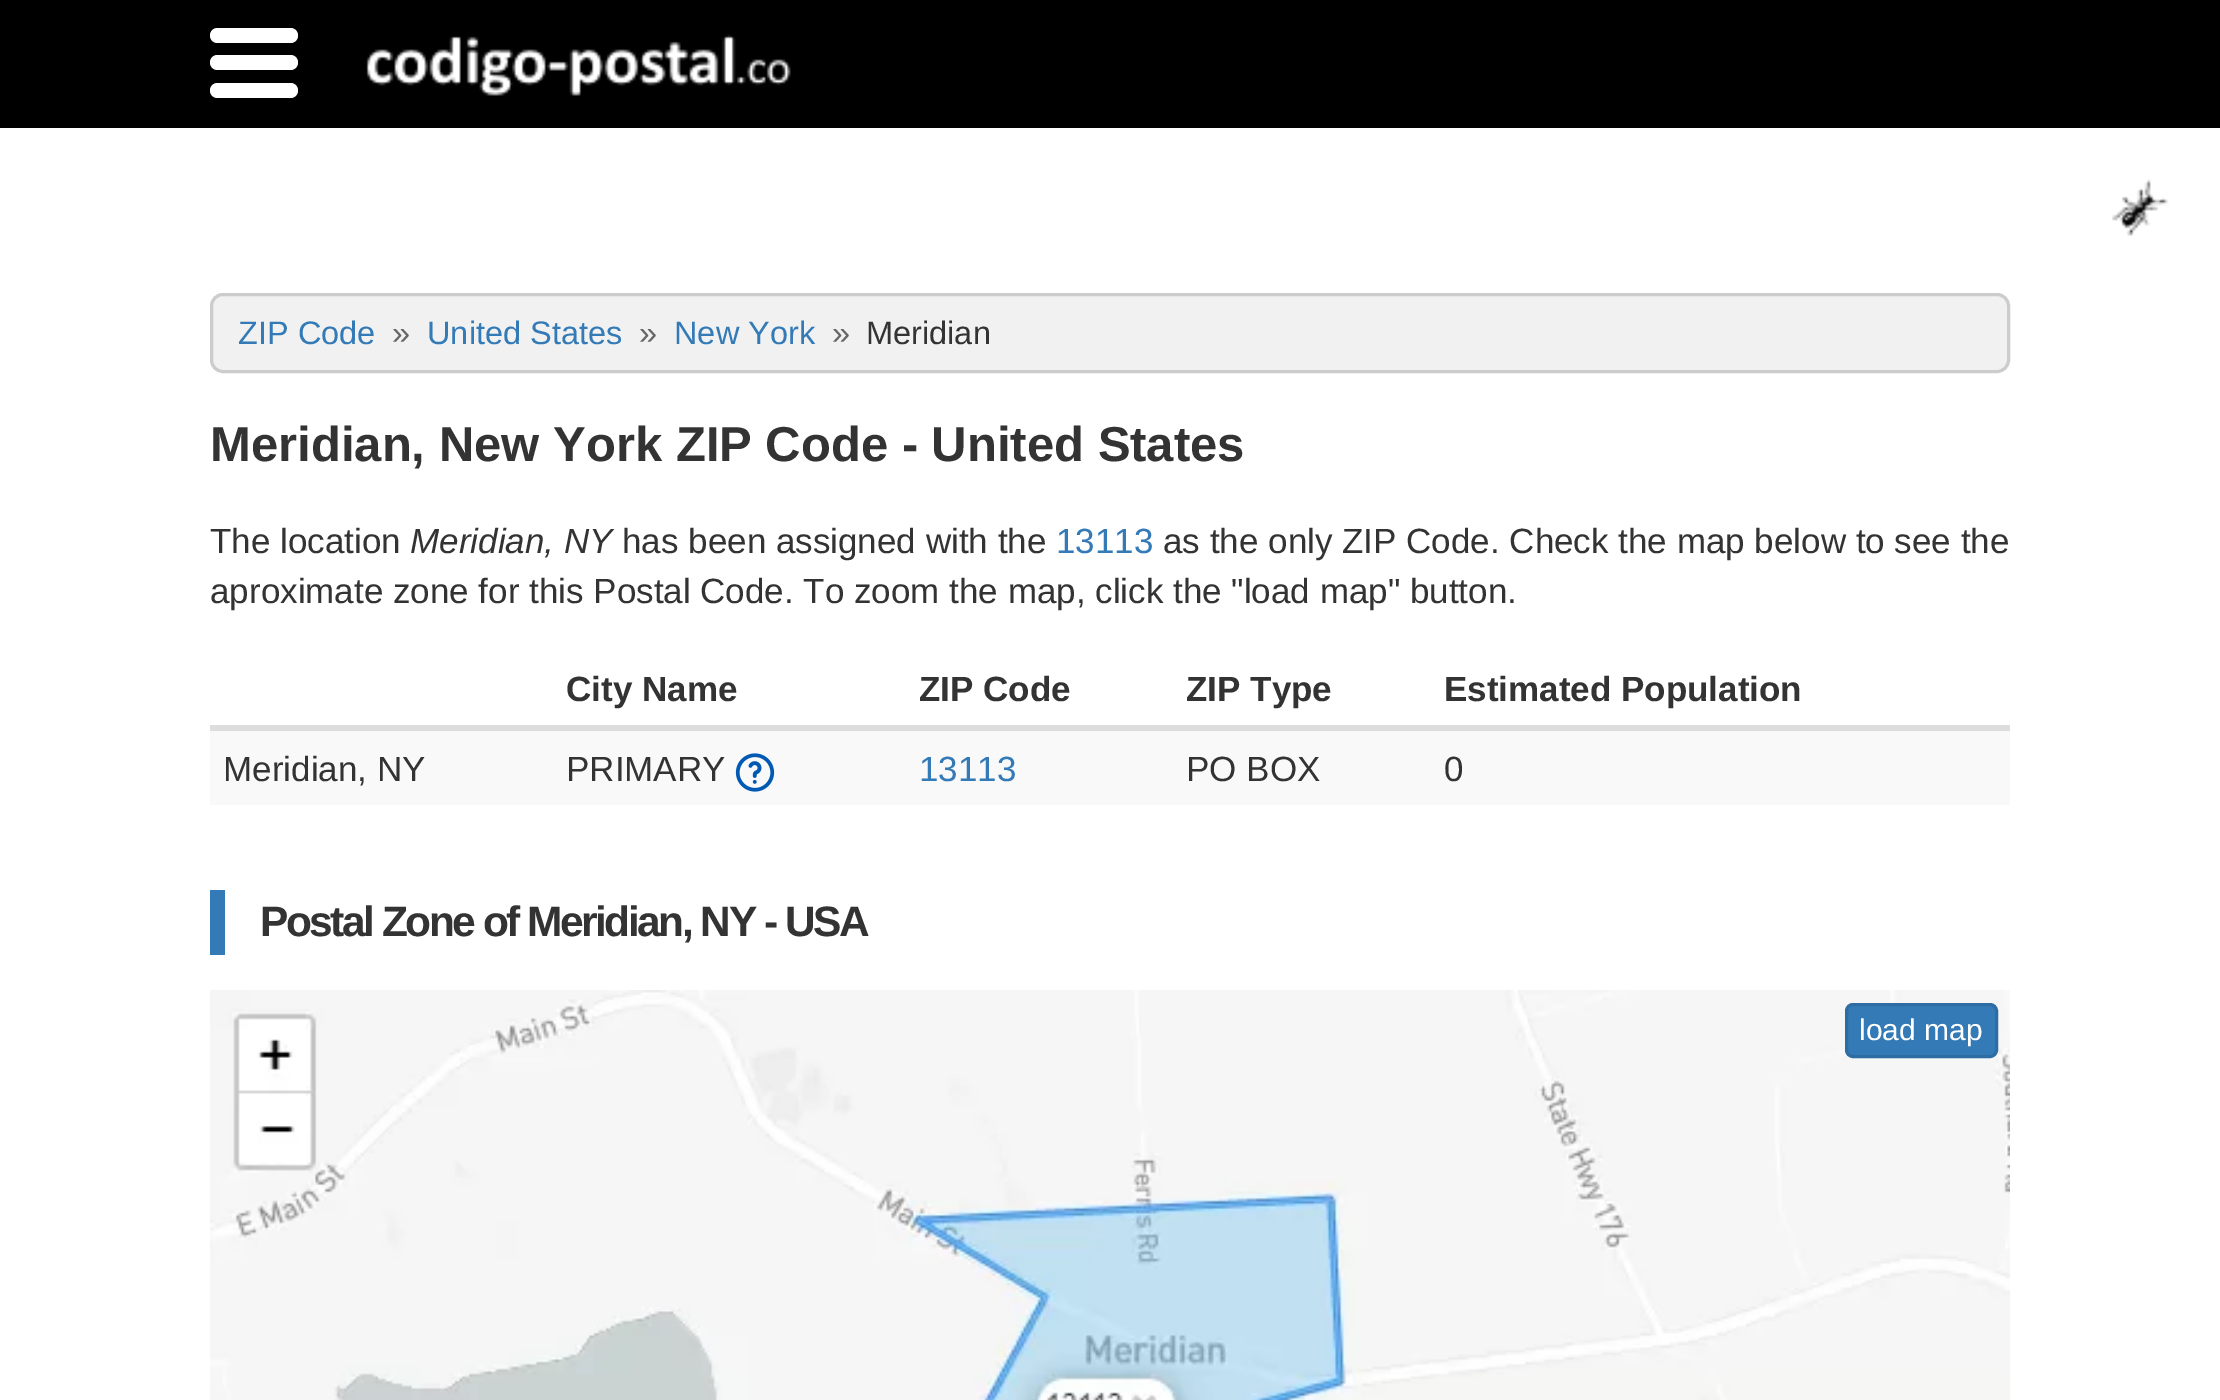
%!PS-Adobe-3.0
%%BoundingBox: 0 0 2220 1400
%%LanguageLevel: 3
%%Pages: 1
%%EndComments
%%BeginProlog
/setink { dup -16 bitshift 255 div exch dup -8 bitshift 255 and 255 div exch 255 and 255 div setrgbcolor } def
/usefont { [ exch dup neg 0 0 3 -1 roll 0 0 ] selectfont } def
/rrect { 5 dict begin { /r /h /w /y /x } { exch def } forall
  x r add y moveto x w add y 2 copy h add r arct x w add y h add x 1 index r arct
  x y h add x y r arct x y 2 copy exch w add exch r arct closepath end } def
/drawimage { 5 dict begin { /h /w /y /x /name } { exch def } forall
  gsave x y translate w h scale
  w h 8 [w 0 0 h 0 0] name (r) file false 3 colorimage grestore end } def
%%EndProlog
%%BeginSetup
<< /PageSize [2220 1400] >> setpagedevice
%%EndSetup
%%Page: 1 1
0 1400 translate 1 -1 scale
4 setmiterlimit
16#FFFFFF setink
0 0 2220 1400 rectfill
16#000000 setink
0 0 2220 128 rectfill
16#FFFFFF setink
210 28 88 15 7.5 rrect fill
210 55 88 15 7.5 rrect fill
210 83 88 15 7.5 rrect fill
(img1.raw) 366 34 425 62 drawimage
(img2.raw) 2112 179 57 57 drawimage
16#F1F1F1 setink
211.5 294.5 1797 77 11.5 rrect gsave fill grestore
16#CCCCCC setink
3 setlinewidth
stroke
/LiberationSans-Regular 32.5 usefont
16#337AB7 setink
238 344 moveto (ZIP Code) show
16#666666 setink
392 344 moveto (») show
16#337AB7 setink
427 344 moveto (United States) show
16#666666 setink
639 344 moveto (») show
16#337AB7 setink
674 344 moveto (New York) show
16#666666 setink
832 344 moveto (») show
16#333333 setink
866 344 moveto (Meridian) show
/LiberationSans-Bold 49 usefont
210 461 moveto (Meridian, New York ZIP Code - United States) show
/LiberationSans-Regular 35 usefont
210 553 moveto (The location) show
/LiberationSans-Italic 35 usefont
410 553 moveto (Meridian, NY) show
/LiberationSans-Regular 35 usefont
622 553 moveto (has been assigned with the) show
16#337AB7 setink
1056 553 moveto (13113) show
16#333333 setink
1163 553 moveto (as the only ZIP Code. Check the map below to see the) show
210 603 moveto (aproximate zone for this Postal Code. To zoom the map, click the "load map" button.) show
/LiberationSans-Bold 35 usefont
[
    [(City Name) 566 701]
    [(ZIP Code) 919 701]
    [(ZIP Type) 1186 701]
] { aload pop moveto show } forall
16#DDDDDD setink
210 725 1800 5 rectfill
16#333333 setink
1444 701 moveto (Estimated Population) show
16#F9F9F9 setink
210 731 1800 74 rectfill
/LiberationSans-Regular 35 usefont
16#333333 setink
223 781 moveto (Meridian, NY) show
566 781 moveto (PRIMARY) show
(img3.raw) 735 753 40 39 drawimage
16#337AB7 setink
919 781 moveto (13113) show
16#333333 setink
1186 781 moveto (PO BOX) show
16#DDDDDD setink
210 730 1800 1 rectfill
16#333333 setink
1444 781 moveto (0) show
16#337AB7 setink
210 890 15 65 rectfill
/LiberationSans-Bold 42.5 usefont
16#333333 setink
260 936 moveto -2.5 0 (Postal Zone of Meridian, NY - USA) ashow
(img4.raw) 210 990 1800 410 drawimage
16#337AB7 setink
1846.5 1004.5 150 52 6.5 rrect gsave fill grestore
16#2E6DA4 setink
stroke
/LiberationSans-Regular 30 usefont
16#FFFFFF setink
1859 1040 moveto (load map) show
showpage
%%EOF
